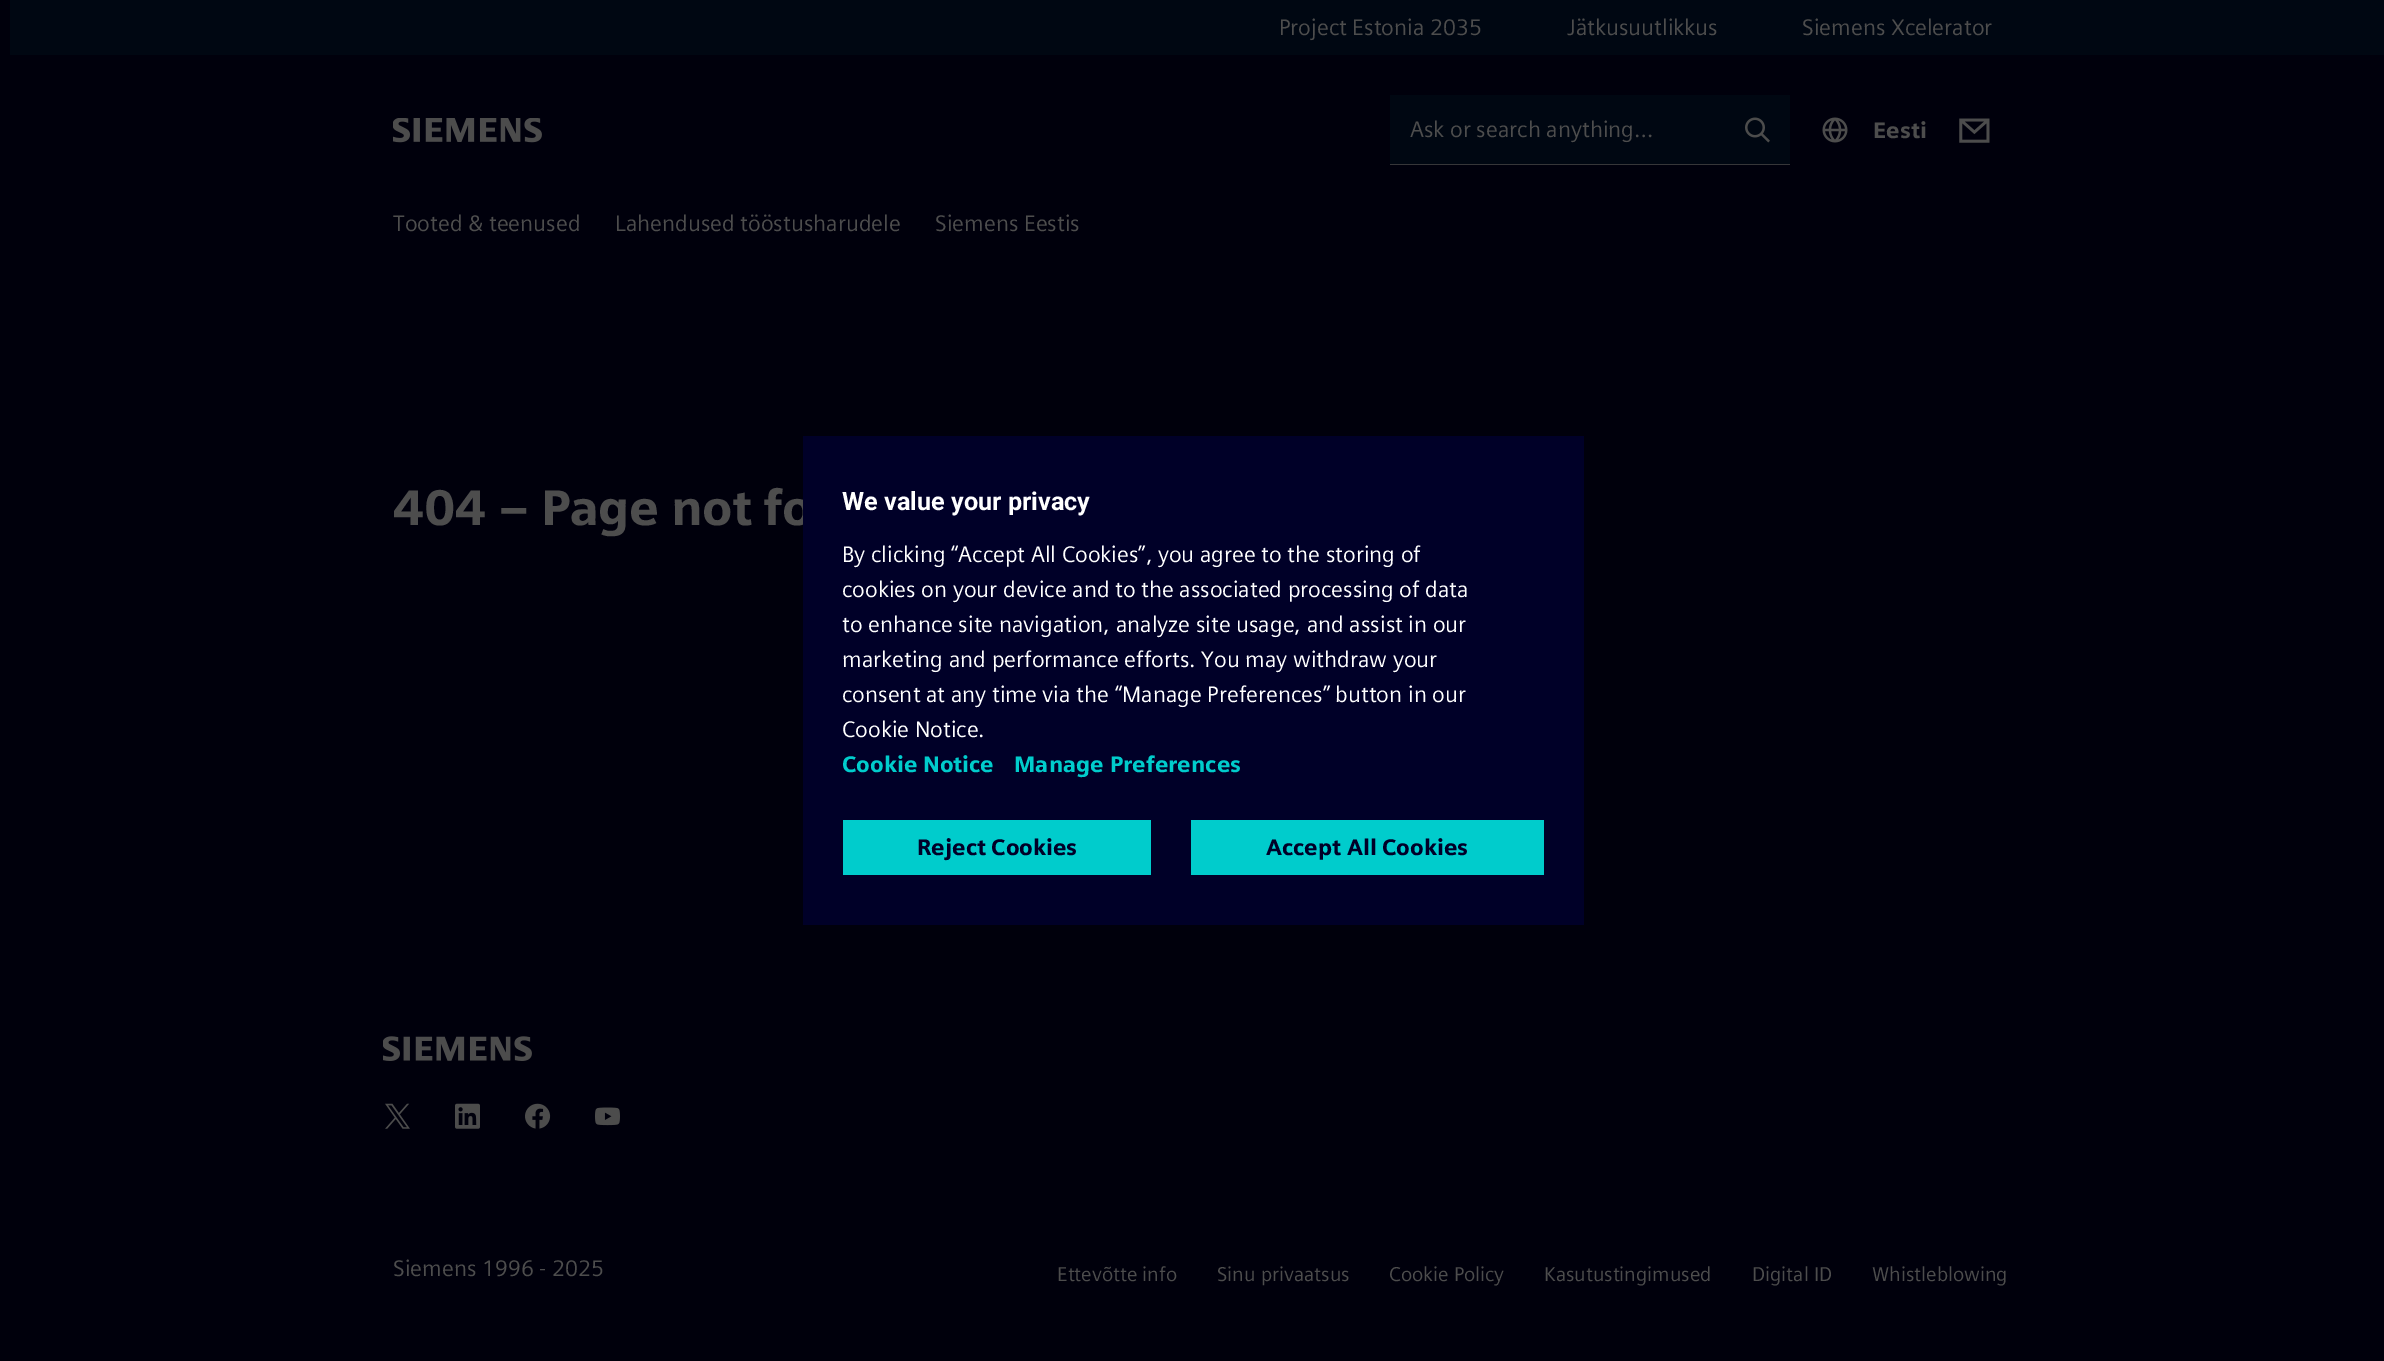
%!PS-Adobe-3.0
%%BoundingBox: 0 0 2384 1361
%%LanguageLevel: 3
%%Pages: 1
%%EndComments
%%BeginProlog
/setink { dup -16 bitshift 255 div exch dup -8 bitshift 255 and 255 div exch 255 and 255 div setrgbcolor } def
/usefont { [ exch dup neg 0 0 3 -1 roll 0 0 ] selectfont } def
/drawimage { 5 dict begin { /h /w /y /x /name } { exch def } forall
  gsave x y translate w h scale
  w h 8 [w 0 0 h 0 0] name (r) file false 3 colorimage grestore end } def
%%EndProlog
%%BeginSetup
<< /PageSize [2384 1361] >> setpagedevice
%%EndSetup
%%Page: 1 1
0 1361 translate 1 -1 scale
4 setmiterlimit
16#00000C setink
0 0 2384 1361 rectfill
16#000712 setink
10 0 2374 55 rectfill
/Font-Regular 22.5 usefont
16#4D4D4D setink
[
    [(Project Estonia 2035) 1279 35]
    [(Jätkusuutlikkus) 1567 35]
    [(Siemens Xcelerator) 1802 35]
] { aload pop moveto show } forall
(img1.raw) 393 118 149 25 drawimage
16#000712 setink
1390 95 400 69 rectfill
16#363639 setink
1390 164 400 1 rectfill
16#4D4D4D setink
1410 137 moveto (Ask or search anything…) show
(img2.raw) 1745 117 25 26 drawimage
(img3.raw) 1822 117 26 26 drawimage
/Font-Bold 22.5 usefont
1873 138 moveto (Eesti) show
(img4.raw) 1959 118 31 25 drawimage
/Font-Regular 22.5 usefont
[
    [(Tooted & teenused) 393 231]
    [(Lahendused tööstusharudele) 615 231]
    [(Siemens Eestis) 935 231]
] { aload pop moveto show } forall
/Font-Bold 50 usefont
393 525 moveto -0.6 0 (404 – Page not fo) ashow
(img5.raw) 383 1036 149 25 drawimage
(img6.raw) 385 1103 25 26 drawimage
(img7.raw) 455 1103 25 26 drawimage
(img8.raw) 525 1103 26 26 drawimage
(img9.raw) 595 1107 25 19 drawimage
/Font-Regular 22.5 usefont
393 1276 moveto (Siemens 1996 - 2025) show
/Font-Regular 20 usefont
[
    [(Ettevõtte info) 1057 1281]
    [(Sinu privaatsus) 1217 1281]
    [(Cookie Policy) 1389 1281]
    [(Kasutustingimused) 1544 1281]
    [(Digital ID) 1752 1281]
    [(Whistleblowing) 1872 1281]
] { aload pop moveto show } forall
16#000028 setink
803 436 781 489 rectfill
/Roboto-Bold 25.25 usefont
16#FFFFFF setink
842 510 moveto (We value your privacy) show
/Font-Regular 22.5 usefont
[
    [(By clicking “Accept All Cookies”, you agree to the storing of) 842 562]
    [(cookies on your device and to the associated processing of data) 842 597]
    [(to enhance site navigation, analyze site usage, and assist in our) 842 632]
    [(marketing and performance efforts. You may withdraw your) 842 667]
    [(consent at any time via the “Manage Preferences” button in our) 842 702]
    [(Cookie Notice.) 842 737]
] { aload pop moveto show } forall
/Font-Bold 22.5 usefont
16#00CCCC setink
842 772 moveto (Cookie Notice) show
1014 772 moveto (Manage Preferences) show
843 820 308 55 rectfill
16#000028 setink
917 855 moveto (Reject Cookies) show
16#00CCCC setink
1191 820 353 55 rectfill
16#000028 setink
1266 855 moveto (Accept All Cookies) show
showpage
%%EOF
